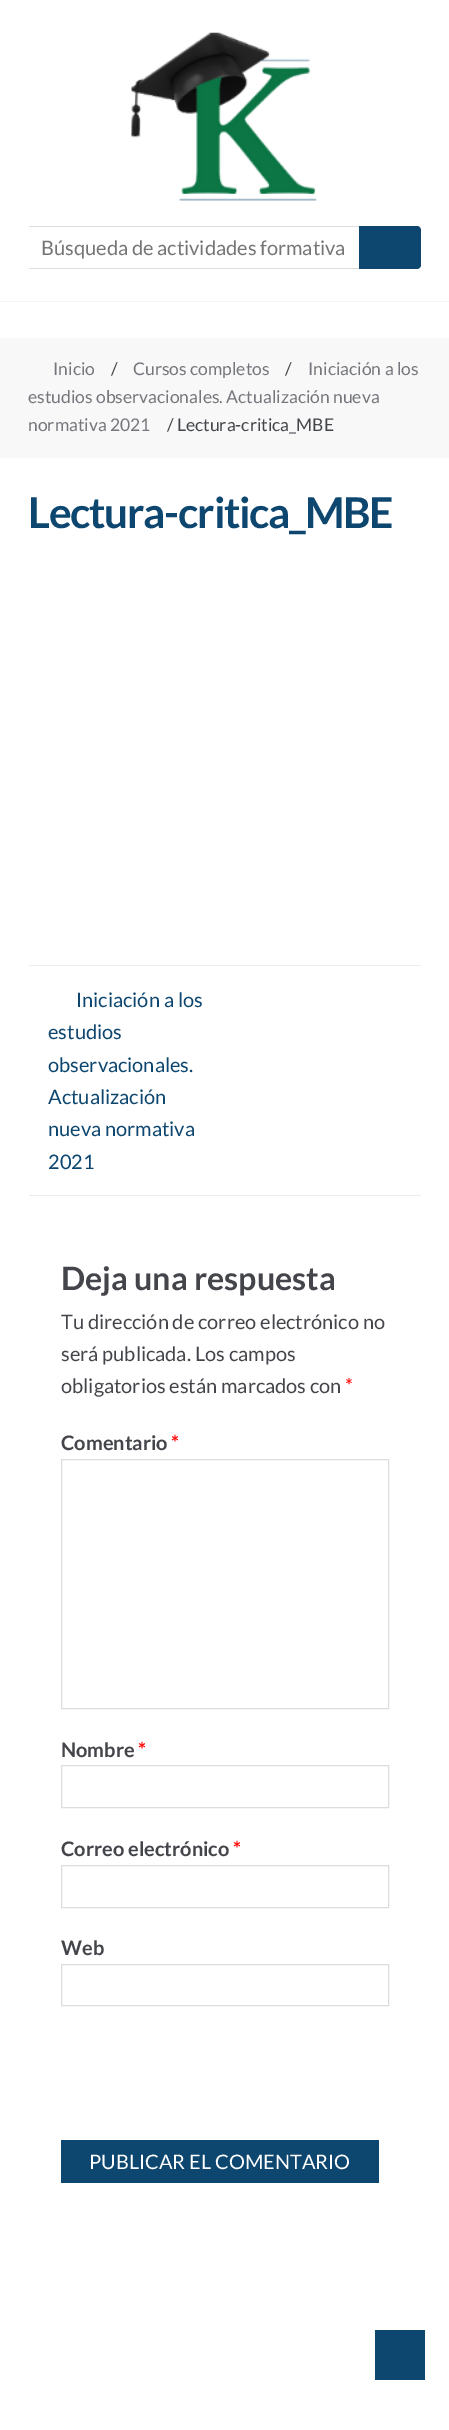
%!PS-Adobe-3.0
%%BoundingBox: 0 0 449 2430
%%LanguageLevel: 3
%%Pages: 1
%%EndComments
%%BeginProlog
/setink { dup -16 bitshift 255 div exch dup -8 bitshift 255 and 255 div exch 255 and 255 div setrgbcolor } def
/usefont { [ exch dup neg 0 0 3 -1 roll 0 0 ] selectfont } def
/drawimage { 5 dict begin { /h /w /y /x /name } { exch def } forall
  gsave x y translate w h scale
  w h 8 [w 0 0 h 0 0] name (r) file false 3 colorimage grestore end } def
%%EndProlog
%%BeginSetup
<< /PageSize [449 2430] >> setpagedevice
%%EndSetup
%%Page: 1 1
0 2430 translate 1 -1 scale
4 setmiterlimit
16#FFFFFF setink
0 0 449 2430 rectfill
16#F5F5F5 setink
0 301 449 1 rectfill
(img1.raw) 131 32 186 169 drawimage
16#DDDDDD setink
29 226 330 1 rectfill
29 268 330 1 rectfill
/Lato-Regular 20 usefont
16#757575 setink
41 255 moveto (Búsqueda de actividades formativa) show
16#0D466E setink
359 226 moveto 417 226 lineto 419 226 421 228 421 230 curveto 421 265 lineto 421 267 419 269 417 269 curveto 359 269 lineto closepath fill
16#F8F8F8 setink
0 338 449 120 rectfill
/Lato-Regular 17.5 usefont
16#75777D setink
53 375 moveto (Inicio) show
16#43454B setink
111 375 moveto (/) show
16#75777D setink
133 375 moveto (Cursos completos) show
16#43454B setink
285 375 moveto (/) show
16#75777D setink
[
    [(Iniciación a los) 308 375]
    [(estudios observacionales. Actualización nueva) 28 403]
    [(normativa 2021) 28 431]
] { aload pop moveto show } forall
16#43454B setink
167 431 moveto (/ Lectura-critica_MBE) show
/Lato-Bold 42.5 usefont
16#0D466E setink
28 528 moveto -1.25 0 (Lectura-critica_MBE) ashow
16#ECECEC setink
29 965 392 1 rectfill
29 1195 392 1 rectfill
/Lato-Regular 20 usefont
16#0D466E setink
[
    [(Iniciación a los) 76 1007]
    [(estudios) 48 1039]
    [(observacionales.) 48 1072]
    [(Actualización) 48 1104]
    [(nueva normativa) 48 1136]
    [(2021) 48 1169]
] { aload pop moveto show } forall
/Lato-Bold 32.25 usefont
16#43454B setink
61 1290 moveto (Deja una respuesta) show
/Lato-Regular 20 usefont
[
    [(Tu dirección de correo electrónico no) 61 1329]
    [(será publicada. Los campos) 61 1361]
    [(obligatorios están marcados con) 61 1393]
] { aload pop moveto show } forall
16#FF0000 setink
345 1393 moveto (*) show
/Lato-Bold 20 usefont
16#43454B setink
61 1450 moveto (Comentario) show
16#FF0000 setink
171 1450 moveto (*) show
16#DDDDDD setink
61.5 1459.5 327 249 rectstroke
16#43454B setink
61 1757 moveto (Nombre) show
16#FF0000 setink
138 1757 moveto (*) show
16#DDDDDD setink
61.5 1765.5 327 42 rectstroke
16#43454B setink
61 1856 moveto (Correo electrónico) show
16#FF0000 setink
233 1856 moveto (*) show
16#DDDDDD setink
61.5 1865.5 327 42 rectstroke
16#43454B setink
61 1955 moveto (Web) show
16#DDDDDD setink
61.5 1964.5 327 41 rectstroke
16#0D466E setink
61 2140 318 43 rectfill
/Lato-Regular 20 usefont
16#FFFFFF setink
89 2169 moveto (PUBLICAR EL COMENTARIO) show
16#0D466E setink
375 2330 50 50 rectfill
showpage
%%EOF
